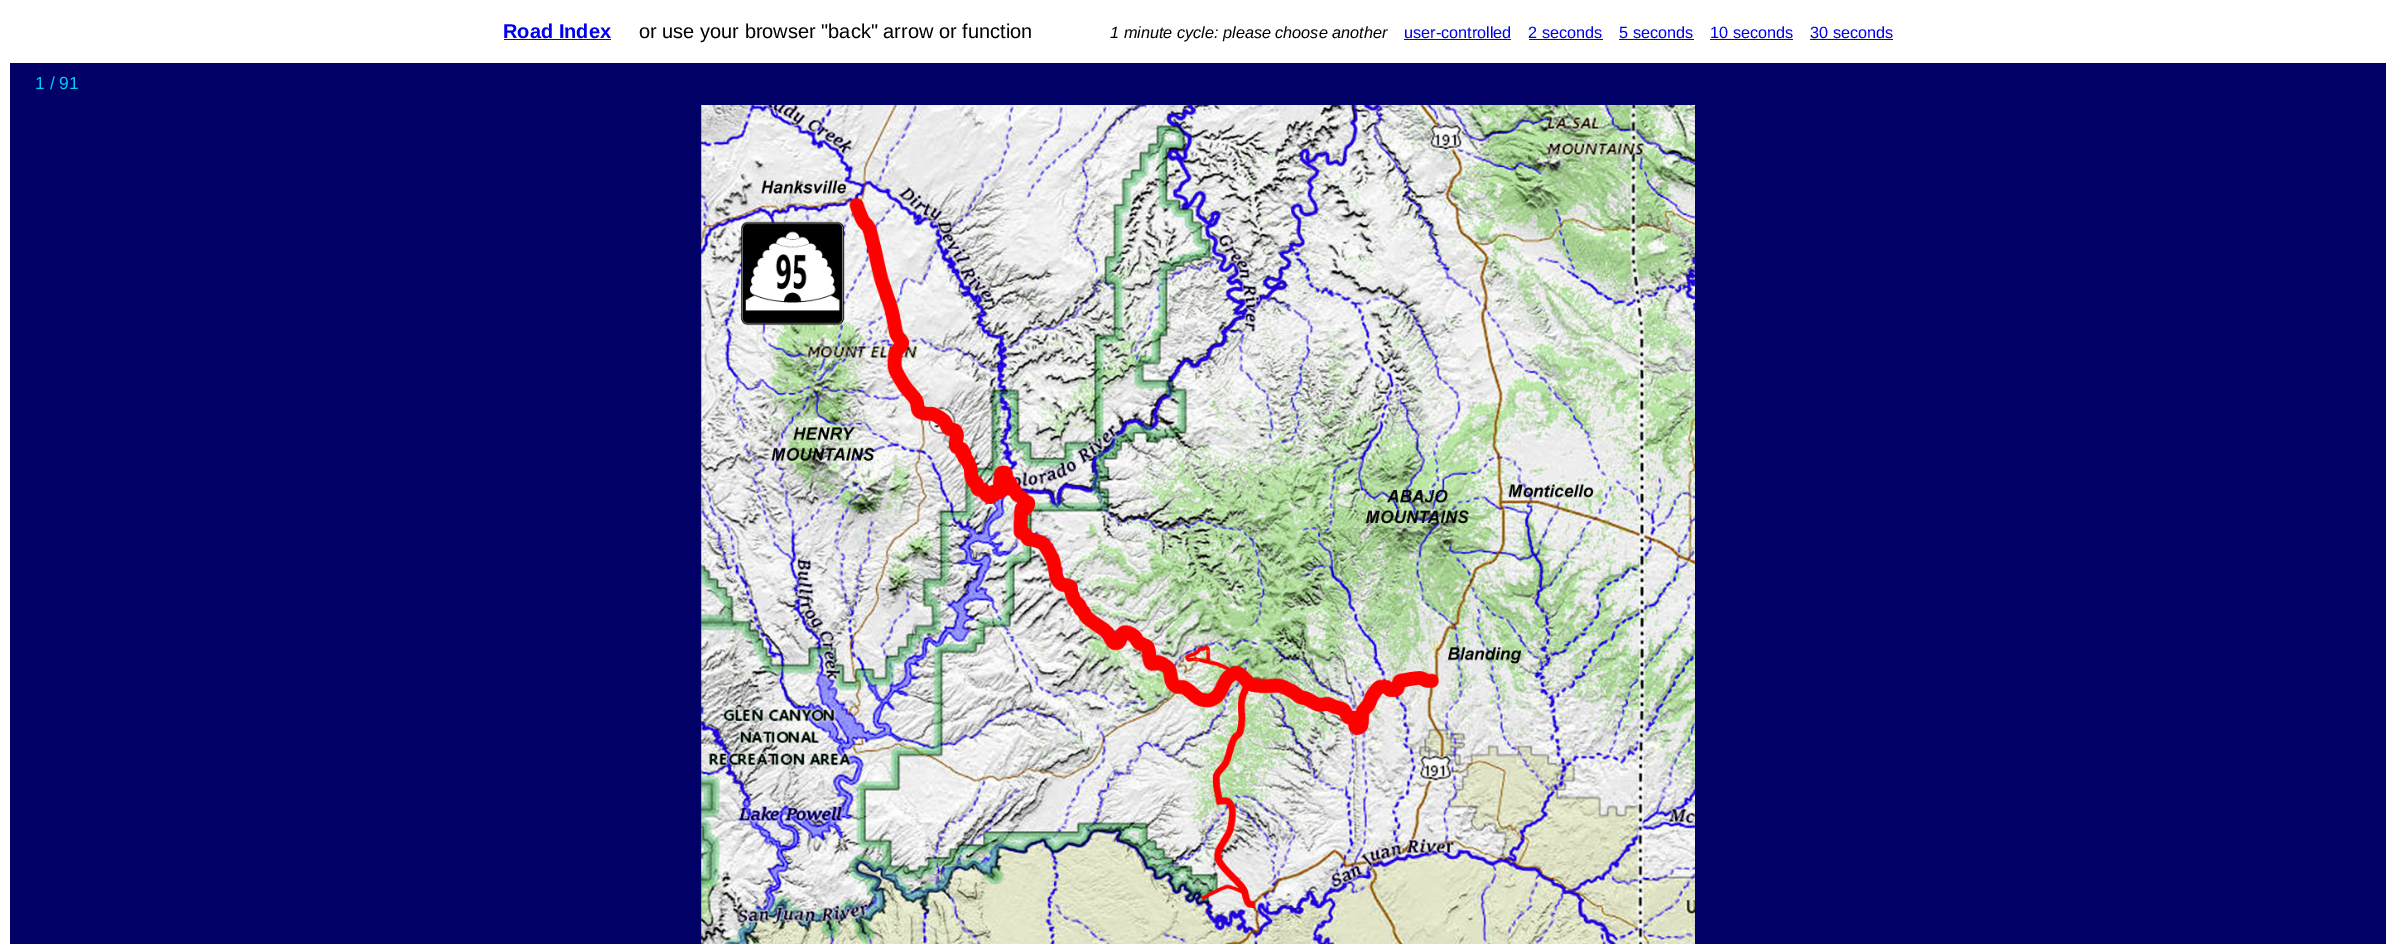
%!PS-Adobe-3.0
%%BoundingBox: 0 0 2396 944
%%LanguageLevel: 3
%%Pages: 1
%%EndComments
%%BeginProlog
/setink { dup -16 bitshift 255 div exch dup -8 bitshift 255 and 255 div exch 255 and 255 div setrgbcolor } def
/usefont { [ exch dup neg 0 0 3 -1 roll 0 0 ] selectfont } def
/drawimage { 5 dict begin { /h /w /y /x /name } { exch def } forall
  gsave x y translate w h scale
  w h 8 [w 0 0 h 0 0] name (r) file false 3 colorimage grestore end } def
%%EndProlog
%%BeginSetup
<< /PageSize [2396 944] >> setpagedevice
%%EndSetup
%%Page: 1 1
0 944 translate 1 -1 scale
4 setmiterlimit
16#FFFFFF setink
0 0 2396 944 rectfill
/LiberationSans-Bold 20 usefont
16#0000EE setink
503 38 moveto (Road Index) show
504 39 107 1 rectfill
/LiberationSans-Regular 20 usefont
16#000000 setink
639 38 moveto (or use your browser "back" arrow or function) show
/LiberationSans-Italic 16.25 usefont
1110 38 moveto (1 minute cycle: please choose another) show
/LiberationSans-Regular 16.25 usefont
16#0000EE setink
1404 38 moveto (user-controlled) show
1404 39 107 1 rectfill
1528 38 moveto (2 seconds) show
1529 39 74 1 rectfill
1619 38 moveto (5 seconds) show
1619 39 75 1 rectfill
1710 38 moveto (10 seconds) show
1710 39 83 1 rectfill
1810 38 moveto (30 seconds) show
1810 39 83 1 rectfill
16#000066 setink
10 63 2376 881 rectfill
/LiberationSans-Regular 17.5 usefont
16#00CCFF setink
35 89 moveto (1 / 91) show
(img1.raw) 701 105 994 839 drawimage
showpage
%%EOF
